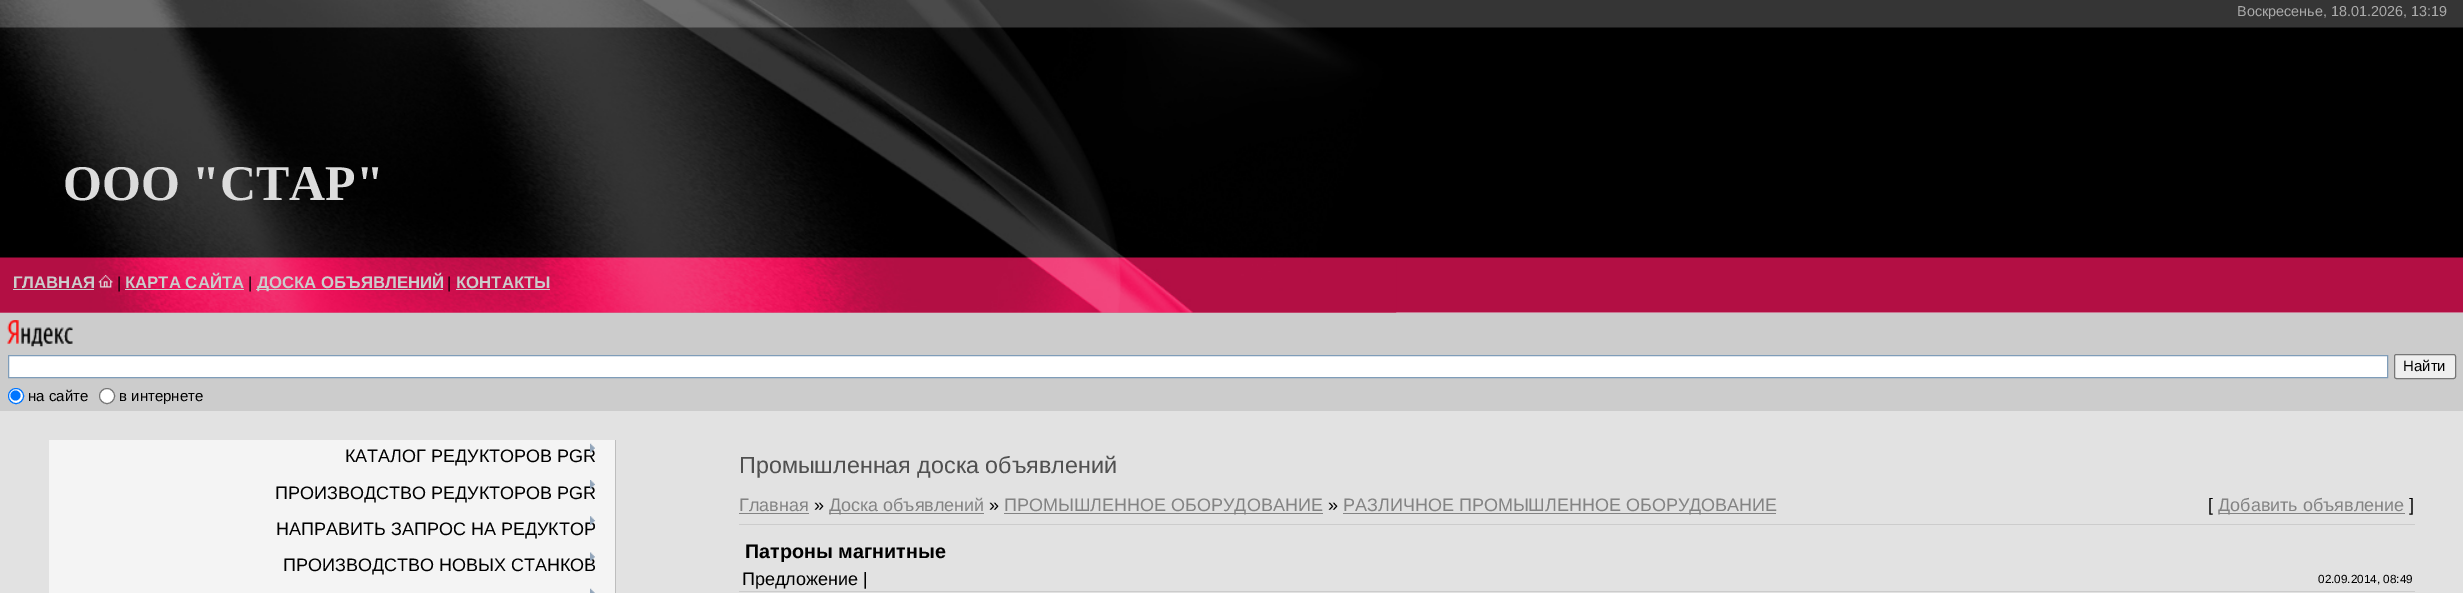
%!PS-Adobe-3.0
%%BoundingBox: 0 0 2463 593
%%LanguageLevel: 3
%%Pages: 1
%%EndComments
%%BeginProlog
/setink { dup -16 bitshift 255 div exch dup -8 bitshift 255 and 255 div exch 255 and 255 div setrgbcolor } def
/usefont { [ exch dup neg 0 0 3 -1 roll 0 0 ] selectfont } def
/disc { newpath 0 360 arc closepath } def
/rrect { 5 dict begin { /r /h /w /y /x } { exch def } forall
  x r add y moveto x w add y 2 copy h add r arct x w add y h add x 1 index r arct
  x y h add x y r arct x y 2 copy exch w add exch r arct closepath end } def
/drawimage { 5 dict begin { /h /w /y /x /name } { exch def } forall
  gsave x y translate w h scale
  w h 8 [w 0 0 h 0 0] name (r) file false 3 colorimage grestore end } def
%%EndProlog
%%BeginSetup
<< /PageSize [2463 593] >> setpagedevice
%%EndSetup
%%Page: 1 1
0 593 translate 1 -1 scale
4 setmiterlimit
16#E2E2E2 setink
0 0 2463 593 rectfill
(img1.raw) 0 0 2463 313 drawimage
(img2.raw) 0 0 1397 313 drawimage
/LiberationSans-Regular 14.4 usefont
16#AAAAAA setink
2237 16 moveto (Воскресенье, 18.01.2026, 13:19) show
/LiberationSerif-Bold 50 usefont
16#DCDCDC setink
63 200 moveto (ООО "СТАР") show
/LiberationSans-Bold 16.75 usefont
16#CCCCCC setink
13 288 moveto (ГЛАВНАЯ) show
13 289 81 1 rectfill
(img3.raw) 98 275 15 13 drawimage
/LiberationSans-Regular 16 usefont
16#000000 setink
117 288 moveto (|) show
/LiberationSans-Bold 16.75 usefont
16#CCCCCC setink
125 288 moveto (КАРТА САЙТА) show
125 289 119 1 rectfill
/LiberationSans-Regular 16 usefont
16#000000 setink
248 288 moveto (|) show
16#CCCCCC setink
256 289 187 1 rectfill
/LiberationSans-Bold 16.75 usefont
257 288 moveto (ДОСКА ОБЪЯВЛЕНИЙ) show
/LiberationSans-Regular 16 usefont
16#000000 setink
447 288 moveto (|) show
/LiberationSans-Bold 16.75 usefont
16#CCCCCC setink
456 288 moveto (КОНТАКТЫ) show
456 289 94 1 rectfill
0 313 2463 98 rectfill
(img4.raw) 7 320 66 27 drawimage
16#FFFFFF setink
8.5 355.5 moveto 2387.5 355.5 lineto 2387.5 377.5 lineto 8.5 377.5 lineto closepath gsave fill grestore
16#7F9DB9 setink
stroke
16#EFEFEF setink
2394.5 354.5 61 24 2 rrect gsave fill grestore
16#767676 setink
stroke
/LiberationSans-Regular 15 usefont
16#000000 setink
2403 371 moveto (Найти) show
16#FFFFFF setink
16 396 7.5 disc gsave fill grestore
16#0075FF setink
stroke
15.5 395.5 5 disc fill
16#000000 setink
28 401 moveto (на сайте) show
16#FFFFFF setink
107 396 7.5 disc gsave fill grestore
16#767676 setink
stroke
16#000000 setink
119 401 moveto (в интернете) show
16#F4F4F4 setink
49 440 566 153 rectfill
16#BDBDBD setink
615 440 1 153 rectfill
/LiberationSans-Regular 18 usefont
16#000000 setink
345 462 moveto (КАТАЛОГ РЕДУКТОРОВ PGR) show
(img5.raw) 590 443 5 10 drawimage
275 499 moveto (ПРОИЗВОДСТВО РЕДУКТОРОВ PGR) show
(img6.raw) 590 480 5 9 drawimage
276 535 moveto (НАПРАВИТЬ ЗАПРОС НА РЕДУКТОР) show
(img7.raw) 590 516 5 9 drawimage
283 571 moveto (ПРОИЗВОДСТВО НОВЫХ СТАНКОВ) show
(img8.raw) 590 552 5 10 drawimage
(img9.raw) 590 588 5 5 drawimage
/LiberationSans-Regular 23.3 usefont
16#505050 setink
739 473 moveto (Промышленная доска объявлений) show
/LiberationSans-Regular 18 usefont
16#838383 setink
739 511 moveto (Главная) show
739 513 70 1 rectfill
16#000000 setink
814 511 moveto (») show
16#838383 setink
829 513 155 1 rectfill
829 511 moveto (Доска объявлений) show
16#000000 setink
989 511 moveto (») show
16#838383 setink
1004 513 319 1 rectfill
1004 511 moveto (ПРОМЫШЛЕННОЕ ОБОРУДОВАНИЕ) show
16#000000 setink
1328 511 moveto (») show
16#838383 setink
1343 513 433 1 rectfill
1343 511 moveto (РАЗЛИЧНОЕ ПРОМЫШЛЕННОЕ ОБОРУДОВАНИЕ) show
16#000000 setink
2208 511 moveto ([) show
16#838383 setink
2219 513 186 1 rectfill
2218 511 moveto (Добавить объявление) show
16#000000 setink
2409 511 moveto (]) show
16#CCCCCC setink
739 524 1676 1 rectfill
/LiberationSans-Bold 19.75 usefont
16#000000 setink
745 558 moveto (Патроны магнитные) show
/LiberationSans-Regular 18 usefont
742 585 moveto (Предложение |) show
/LiberationSans-Regular 11.75 usefont
2318 583 moveto (02.09.2014, 08:49) show
16#CCCCCC setink
739 591 1676 1 rectfill
showpage
%%EOF
